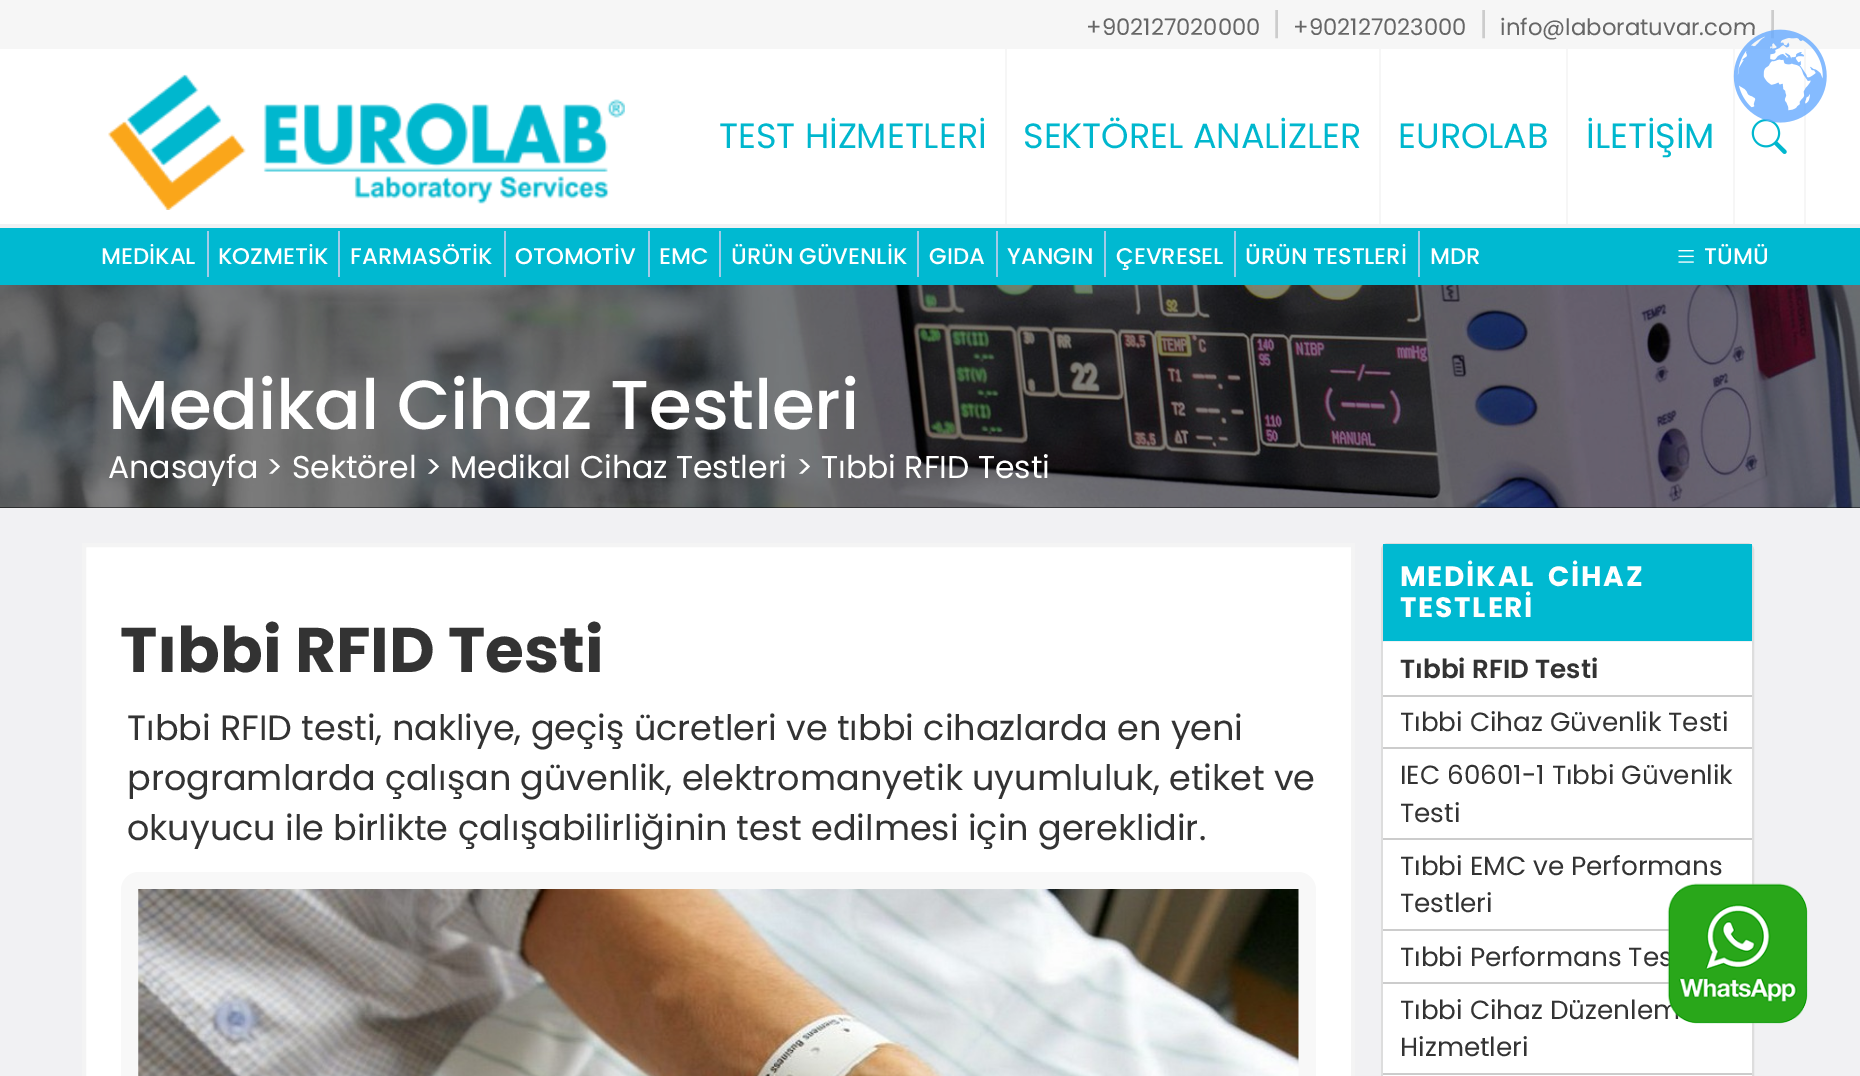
%!PS-Adobe-3.0
%%BoundingBox: 0 0 1860 1076
%%LanguageLevel: 3
%%Pages: 1
%%EndComments
%%BeginProlog
/setink { dup -16 bitshift 255 div exch dup -8 bitshift 255 and 255 div exch 255 and 255 div setrgbcolor } def
/usefont { [ exch dup neg 0 0 3 -1 roll 0 0 ] selectfont } def
/rrect { 5 dict begin { /r /h /w /y /x } { exch def } forall
  x r add y moveto x w add y 2 copy h add r arct x w add y h add x 1 index r arct
  x y h add x y r arct x y 2 copy exch w add exch r arct closepath end } def
/drawimage { 5 dict begin { /h /w /y /x /name } { exch def } forall
  gsave x y translate w h scale
  w h 8 [w 0 0 h 0 0] name (r) file false 3 colorimage grestore end } def
%%EndProlog
%%BeginSetup
<< /PageSize [1860 1076] >> setpagedevice
%%EndSetup
%%Page: 1 1
0 1076 translate 1 -1 scale
4 setmiterlimit
16#F1F1F3 setink
0 0 1860 1076 rectfill
16#FFFFFF setink
0 49 1860 175 rectfill
16#F6F6F6 setink
0 0 1860 49 rectfill
/Poppins-Regular 22.75 usefont
16#666666 setink
1086 35 moveto (+902127020000) show
/Poppins-Regular 31.5 usefont
16#CCCCCC setink
1272 35 moveto (|) show
/Poppins-Regular 22.75 usefont
16#666666 setink
1293 35 moveto (+902127023000) show
/Poppins-Regular 31.5 usefont
16#CCCCCC setink
1479 35 moveto (|) show
/Poppins-Regular 22.75 usefont
16#666666 setink
1500 35 moveto (info@laboratuvar.com) show
/Poppins-Regular 31.5 usefont
16#CCCCCC setink
1768 35 moveto (|) show
16#F6F6F6 setink
1733 49 2 175 rectfill
1804 49 2 175 rectfill
(img3.raw) 1751 119 36 35 drawimage
(img1.raw) 1733 29 94 94 drawimage
(img2.raw) 108 74 517 136 drawimage
1005 49 2 175 rectfill
/Poppins-Regular 35 usefont
16#00B7CE setink
719 148 moveto (TEST HİZMETLERİ) show
16#F6F6F6 setink
1379 49 2 175 rectfill
16#00B7CE setink
1023 148 moveto (SEKTÖREL ANALİZLER) show
16#F6F6F6 setink
1566 49 2 175 rectfill
16#00B7CE setink
1398 148 moveto (EUROLAB) show
1586 148 moveto (İLETİŞİM) show
16#00B9D1 setink
0 228 1860 57 rectfill
16#A2CBE8 setink
207 231 2 46 rectfill
/Poppins-Medium 22.75 usefont
16#FFFFFF setink
101 264 moveto (MEDİKAL) show
16#A2CBE8 setink
338 231 2 46 rectfill
16#FFFFFF setink
218 264 moveto (KOZMETİK) show
16#A2CBE8 setink
504 231 2 46 rectfill
16#FFFFFF setink
350 264 moveto (FARMASÖTİK) show
16#A2CBE8 setink
648 231 2 46 rectfill
16#FFFFFF setink
515 264 moveto (OTOMOTİV) show
16#A2CBE8 setink
719 231 2 46 rectfill
16#FFFFFF setink
659 264 moveto (EMC) show
16#A2CBE8 setink
917 231 2 46 rectfill
16#FFFFFF setink
731 264 moveto (ÜRÜN GÜVENLİK) show
16#A2CBE8 setink
996 231 2 46 rectfill
16#FFFFFF setink
929 264 moveto (GIDA) show
16#A2CBE8 setink
1104 231 2 46 rectfill
16#FFFFFF setink
1007 264 moveto (YANGIN) show
16#A2CBE8 setink
1234 231 2 46 rectfill
16#FFFFFF setink
1116 264 moveto (ÇEVRESEL) show
16#A2CBE8 setink
1418 231 2 46 rectfill
16#FFFFFF setink
1245 264 moveto (ÜRÜN TESTLERİ) show
1430 264 moveto (MDR) show
(img4.raw) 1678 250 16 13 drawimage
1704 264 moveto (TÜMÜ) show
16#000000 setink
0 507 1860 1 rectfill
(img5.raw) 0 285 1860 223 drawimage
/Poppins-Medium 69.25 usefont
16#FFFFFF setink
108 429 moveto -0.2 0 (Medikal Cihaz Testleri) ashow
/Poppins-Regular 31.5 usefont
108 478 moveto (Anasayfa > Sektörel > Medikal Cihaz Testleri > Tıbbi RFID Testi) show
84 545 moveto 1353 545 lineto 1353 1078 lineto 84 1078 lineto closepath gsave fill grestore
16#F4F4F4 setink
4 setlinewidth
stroke
/Poppins-Bold 63 usefont
16#333333 setink
120 672 moveto (Tıbbi RFID Testi) show
/Poppins-Regular 35 usefont
[
    [(Tıbbi RFID testi, nakliye, geçiş ücretleri ve tıbbi cihazlarda en yeni) 127 740]
    [(programlarda çalışan güvenlik, elektromanyetik uyumluluk, etiket ve) 127 790]
    [(okuyucu ile birlikte çalışabilirliğinin test edilmesi için gereklidir.) 127 840]
] { aload pop moveto show } forall
16#F8F8F8 setink
121 872 1195 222 18 rrect fill
(img6.raw) 138 889 1161 187 drawimage
16#DDDDDD setink
2 setlinewidth
1382 544 371 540 6 rrect stroke
16#00B9D1 setink
1383 544 369 97 rectfill
/Poppins-Bold 28 usefont
16#FFFFFF setink
1400 586 moveto 5 0 32 1.75 0 (MEDİKAL CİHAZ) awidthshow
1400 617 moveto 1.75 0 (TESTLERİ) ashow
1383 642 369 434 rectfill
16#CCCCCC setink
1383 695 369 2 rectfill
/Poppins-SemiBold 26.25 usefont
16#333333 setink
1400 678 moveto (Tıbbi RFID Testi) show
16#CCCCCC setink
1383 747 369 2 rectfill
/Poppins-Regular 26.25 usefont
16#333333 setink
1400 731 moveto (Tıbbi Cihaz Güvenlik Testi) show
16#CCCCCC setink
1383 838 369 2 rectfill
16#333333 setink
1400 784 moveto (IEC 60601-1 Tıbbi Güvenlik) show
1400 822 moveto (Testi) show
16#CCCCCC setink
1383 929 286 2 rectfill
16#333333 setink
1400 875 moveto (Tıbbi EMC ve Performans) show
1400 912 moveto (Testleri) show
16#CCCCCC setink
1383 982 286 2 rectfill
16#333333 setink
1400 966 moveto (Tıbbi Performans Tes) show
16#CCCCCC setink
1383 1073 369 2 rectfill
16#333333 setink
1400 1019 moveto (Tıbbi Cihaz Düzenlem) show
1400 1056 moveto (Hizmetleri) show
(img7.raw) 1667 883 141 141 drawimage
showpage
%%EOF
